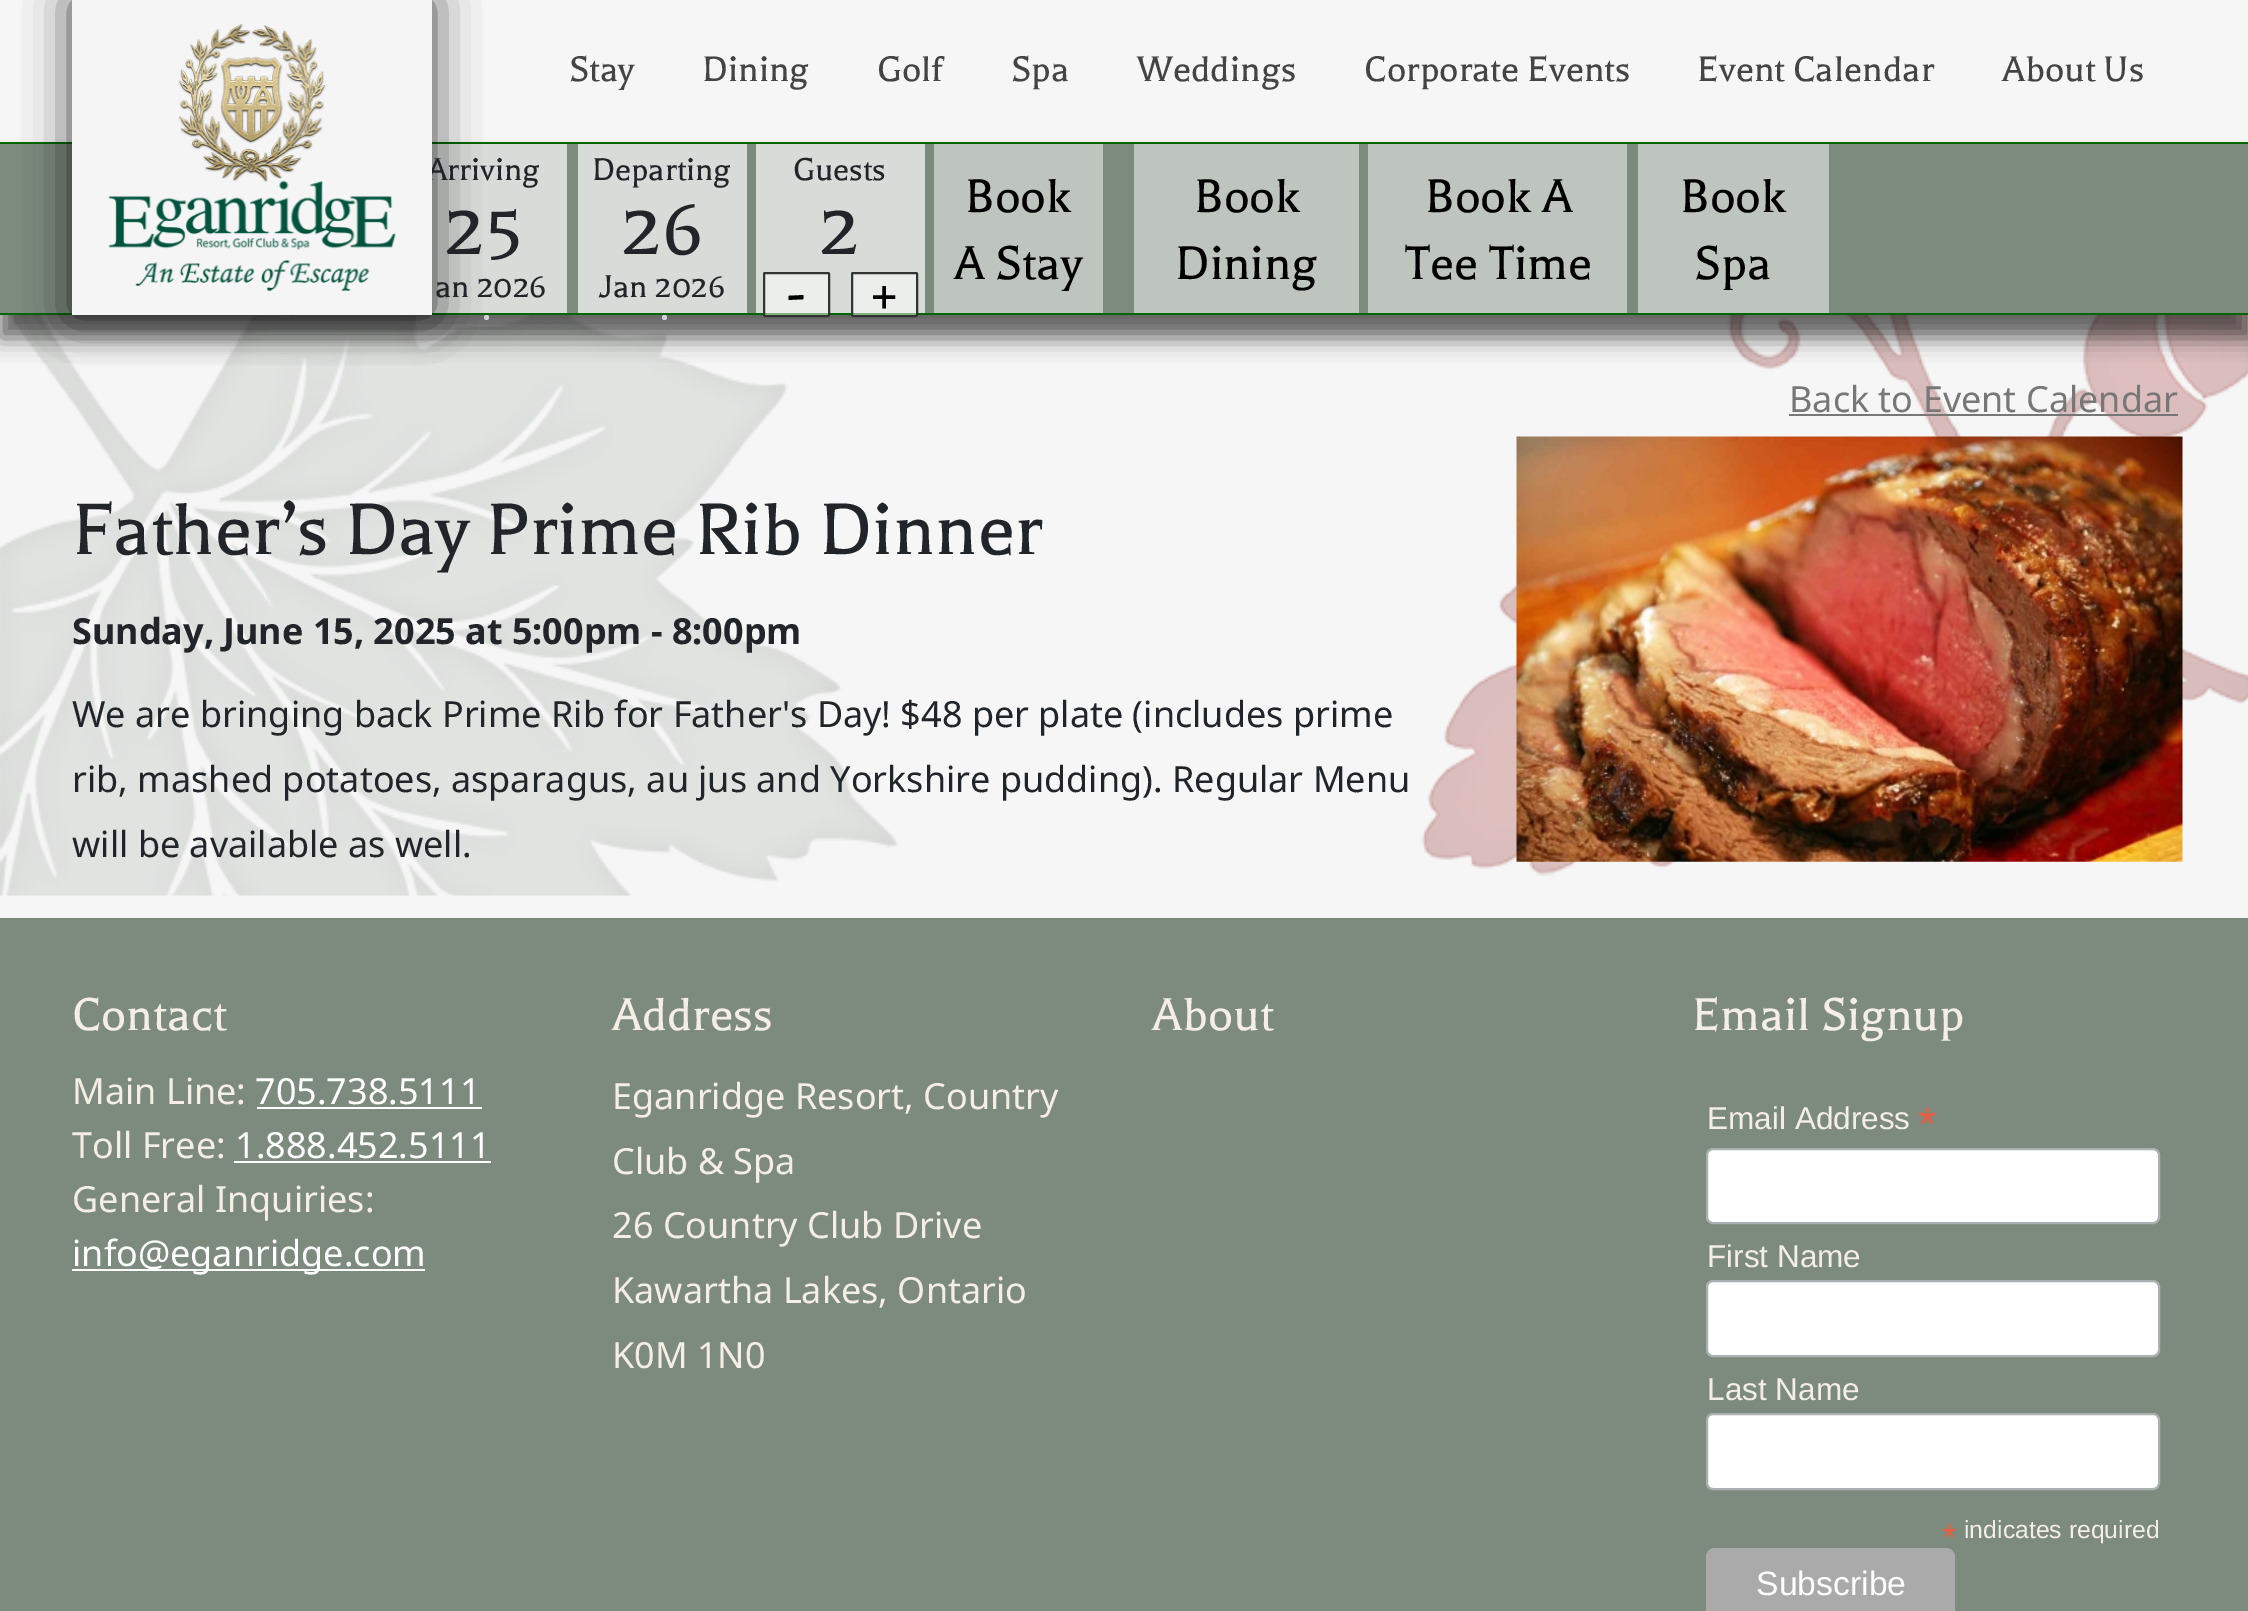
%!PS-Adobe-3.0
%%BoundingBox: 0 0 2248 1611
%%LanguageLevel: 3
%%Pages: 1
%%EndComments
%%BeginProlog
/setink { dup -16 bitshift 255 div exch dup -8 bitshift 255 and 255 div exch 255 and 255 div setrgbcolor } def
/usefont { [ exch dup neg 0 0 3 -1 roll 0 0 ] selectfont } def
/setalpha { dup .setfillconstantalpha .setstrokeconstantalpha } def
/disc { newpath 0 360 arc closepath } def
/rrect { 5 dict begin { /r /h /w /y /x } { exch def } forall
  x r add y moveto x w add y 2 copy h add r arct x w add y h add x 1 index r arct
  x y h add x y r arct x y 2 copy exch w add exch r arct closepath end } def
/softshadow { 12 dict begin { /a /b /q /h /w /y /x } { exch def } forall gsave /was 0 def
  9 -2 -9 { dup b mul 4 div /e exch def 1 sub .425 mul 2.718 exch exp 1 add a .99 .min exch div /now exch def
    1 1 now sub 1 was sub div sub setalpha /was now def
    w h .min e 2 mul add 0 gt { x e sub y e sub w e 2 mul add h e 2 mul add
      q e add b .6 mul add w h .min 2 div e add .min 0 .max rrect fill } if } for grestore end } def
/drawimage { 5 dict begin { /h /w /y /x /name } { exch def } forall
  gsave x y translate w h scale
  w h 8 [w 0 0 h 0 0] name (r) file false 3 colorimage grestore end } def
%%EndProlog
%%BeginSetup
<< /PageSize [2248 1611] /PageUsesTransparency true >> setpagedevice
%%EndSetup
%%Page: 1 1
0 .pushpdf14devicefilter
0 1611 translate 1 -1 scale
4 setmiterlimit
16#F6F6F6 setink
0 0 2248 1611 rectfill
(img2.raw) 0 315 898 581 drawimage
(img3.raw) 1421 315 827 561 drawimage
16#000000 setink
0 164 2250 174 0 11 0.6 softshadow
[
    [0 144 2248 169 16#7D8A7E]
    [0 142 2248 2 16#006600]
    [0 313 2248 2 16#006600]
    [432 144 135 169 16#D8DCD8]
] { aload pop setink rectfill } forall
16#CED4DA setink
486.5 317.5 2.5 disc fill
16#000000 setink
72 0 360 315 0 22.5 0.75 softshadow
/Balthazar-Regular 36 usefont
16#212529 setink
427 180 moveto (Arriving) show
16#F5F5F5 setink
72 0 360 315 rectfill
(img1.raw) 108 24 288 267 drawimage
/Balthazar-Regular 40.5 usefont
16#444444 setink
[
    [(Stay) 569 81]
    [(Dining) 702 81]
    [(Golf) 877 81]
    [(Spa) 1011 81]
    [(Weddings) 1137 81]
    [(Corporate Events) 1364 81]
    [(Event Calendar) 1697 81]
    [(About Us) 2002 81]
] { aload pop moveto show } forall
/Balthazar-Regular 86 usefont
16#212529 setink
445 254 moveto (25) show
/Balthazar-Regular 36 usefont
435 297 moveto (an 2026) show
16#D8DCD8 setink
578 144 169 169 rectfill
16#212529 setink
592 180 moveto (Departing) show
/Balthazar-Regular 86 usefont
622 254 moveto (26) show
/Balthazar-Regular 36 usefont
599 297 moveto (Jan 2026) show
16#CED4DA setink
664.5 317.5 2.5 disc fill
16#D8DCD8 setink
756 144 169 169 rectfill
16#212529 setink
793 180 moveto (Guests) show
/Balthazar-Regular 86 usefont
820 254 moveto (2) show
0.5 setalpha
16#FFFFFF setink
764 273 65 43 1 rrect fill
1 setalpha
16#333333 setink
2 setlinewidth
764 273 65 43 1 rrect stroke
/Balthazar-Regular 63 usefont
16#000000 setink
786 313 moveto (-) show
0.5 setalpha
16#FFFFFF setink
852 273 65 43 1 rrect fill
1 setalpha
16#333333 setink
852 273 65 43 1 rrect stroke
16#000000 setink
868 313 moveto (+) show
16#BEC5BF setink
934 144 169 169 rectfill
/Balthazar-Regular 54 usefont
16#000000 setink
965 212 moveto (Book) show
954 279 moveto (A Stay) show
16#BEC5BF setink
1134 144 225 169 rectfill
16#000000 setink
1194 212 moveto (Book) show
1175 279 moveto (Dining) show
16#BEC5BF setink
1368 144 259 169 rectfill
16#000000 setink
1425 212 moveto (Book A) show
1405 279 moveto (Tee Time) show
16#BEC5BF setink
1638 144 191 169 rectfill
16#000000 setink
1680 212 moveto (Book) show
1694 279 moveto (Spa) show
/NotoSans-Regular 36 usefont
16#777777 setink
1789 412 moveto (Back to Event Calendar) show
1789 414 389 2 rectfill
/Balthazar-Regular 83.25 usefont
16#212529 setink
72 554 moveto (Father’s Day Prime Rib Dinner) show
/NotoSans-Bold 36 usefont
72 644 moveto (Sunday, June 15, 2025 at 5:00pm - 8:00pm) show
/NotoSans-Regular 36 usefont
[
    [(We are bringing back Prime Rib for Father's Day! $48 per plate \(includes prime) 72 727]
    [(rib, mashed potatoes, asparagus, au jus and Yorkshire pudding\). Regular Menu) 72 792]
    [(will be available as well.) 72 857]
] { aload pop moveto show } forall
(img4.raw) 1516 436 667 426 drawimage
16#7D8A7E setink
0 918 2248 693 rectfill
/Balthazar-Regular 52.5 usefont
16#F4EEE6 setink
72 1030 moveto (Contact) show
/NotoSans-Regular 36 usefont
72 1104 moveto (Main Line:) show
16#FFFFFF setink
255 1104 moveto (705.738.5111) show
257 1107 225 2 rectfill
16#F4EEE6 setink
72 1158 moveto (Toll Free:) show
16#FFFFFF setink
235 1158 moveto (1.888.452.5111) show
234 1161 257 2 rectfill
16#F4EEE6 setink
72 1212 moveto (General Inquiries:) show
16#FFFFFF setink
72 1269 353 2 rectfill
72 1266 moveto (info@eganridge.com) show
/Balthazar-Regular 52.5 usefont
16#F4EEE6 setink
612 1030 moveto (Address) show
/NotoSans-Regular 36 usefont
[
    [(Eganridge Resort, Country) 612 1109]
    [(Club & Spa) 612 1174]
    [(26 Country Club Drive) 612 1238]
    [(Kawartha Lakes, Ontario) 612 1303]
    [(K0M 1N0) 612 1368]
] { aload pop moveto show } forall
/Balthazar-Regular 52.5 usefont
1152 1030 moveto (About) show
1692 1030 moveto (Email Signup) show
/LiberationSans-Regular 31.5 usefont
1707 1129 moveto (Email Address) show
/LiberationSans-Regular 47 usefont
16#E85C41 setink
1918 1140 moveto (*) show
16#FFFFFF setink
1707 1149 452 74 6 rrect gsave fill grestore
16#ABB0B2 setink
stroke
/LiberationSans-Regular 31.5 usefont
16#F4EEE6 setink
1707 1267 moveto (First Name) show
16#FFFFFF setink
1707 1281 452 75 6 rrect gsave fill grestore
16#ABB0B2 setink
stroke
16#F4EEE6 setink
1707 1400 moveto (Last Name) show
16#FFFFFF setink
1707 1414 452 75 6 rrect gsave fill grestore
16#ABB0B2 setink
stroke
/LiberationSans-Regular 37 usefont
16#E85C41 setink
1942 1550 moveto (*) show
/LiberationSans-Regular 24.75 usefont
16#F4EEE6 setink
1964 1538 moveto (indicates required) show
16#AAAAAA setink
1706 1548 249 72 9 rrect fill
/LiberationSans-Regular 33.75 usefont
16#FFFFFF setink
1756 1595 moveto (Subscribe) show
.poppdf14devicefilter showpage
%%EOF
